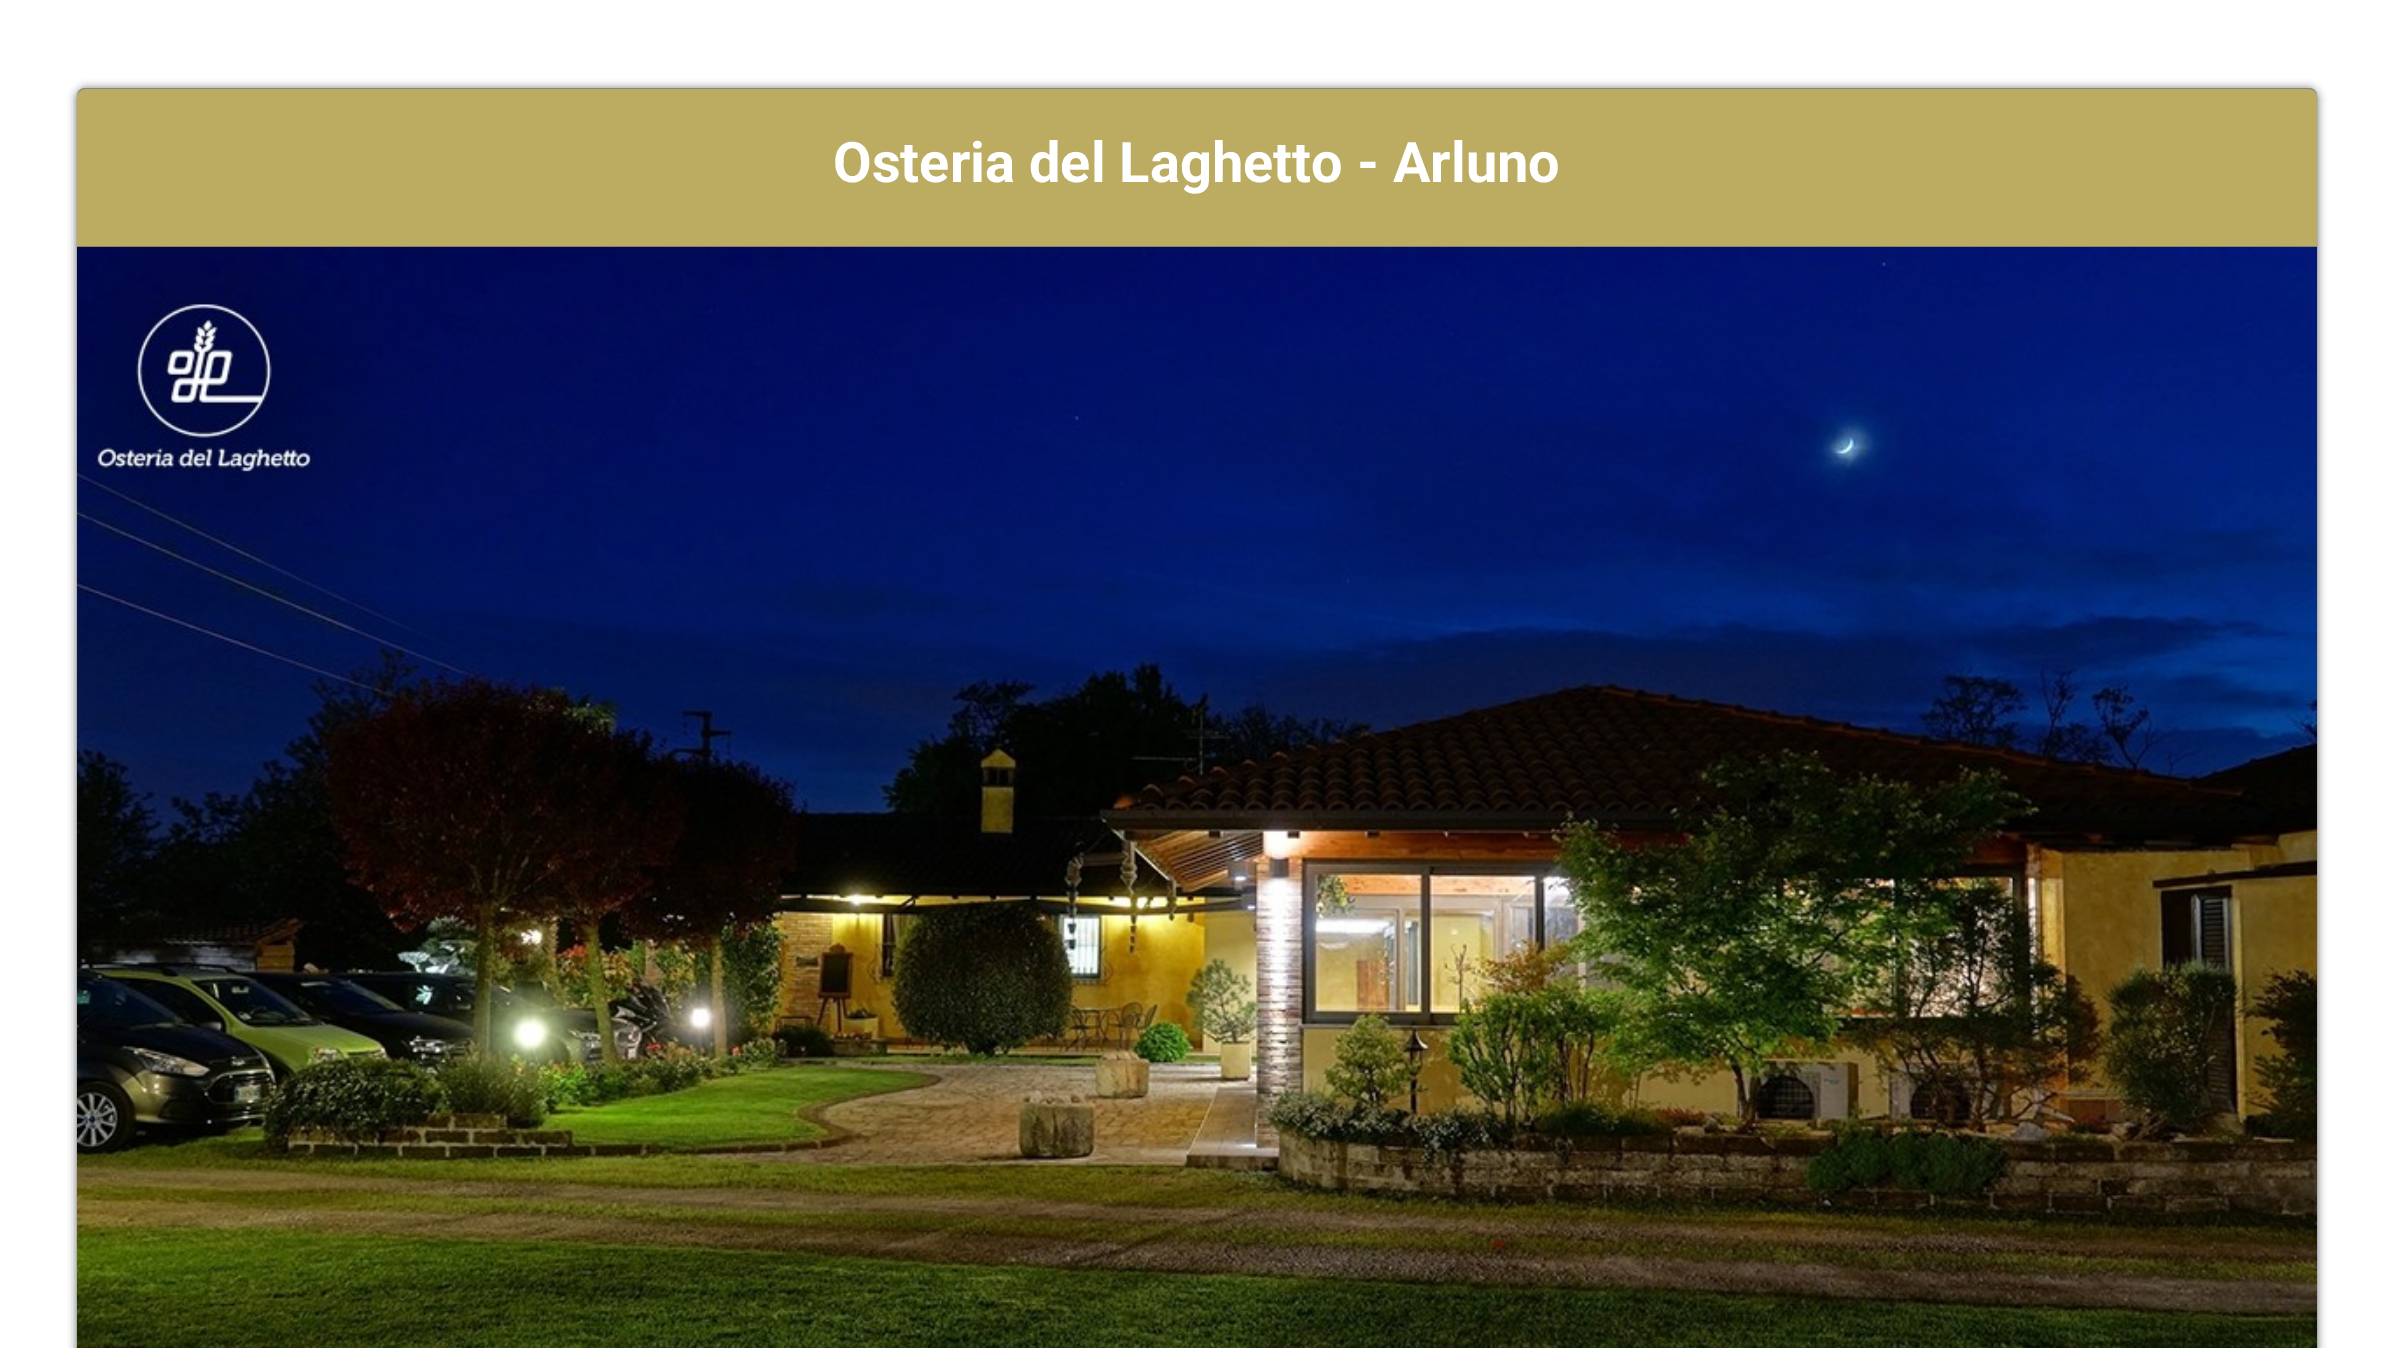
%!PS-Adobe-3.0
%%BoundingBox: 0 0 2391 1348
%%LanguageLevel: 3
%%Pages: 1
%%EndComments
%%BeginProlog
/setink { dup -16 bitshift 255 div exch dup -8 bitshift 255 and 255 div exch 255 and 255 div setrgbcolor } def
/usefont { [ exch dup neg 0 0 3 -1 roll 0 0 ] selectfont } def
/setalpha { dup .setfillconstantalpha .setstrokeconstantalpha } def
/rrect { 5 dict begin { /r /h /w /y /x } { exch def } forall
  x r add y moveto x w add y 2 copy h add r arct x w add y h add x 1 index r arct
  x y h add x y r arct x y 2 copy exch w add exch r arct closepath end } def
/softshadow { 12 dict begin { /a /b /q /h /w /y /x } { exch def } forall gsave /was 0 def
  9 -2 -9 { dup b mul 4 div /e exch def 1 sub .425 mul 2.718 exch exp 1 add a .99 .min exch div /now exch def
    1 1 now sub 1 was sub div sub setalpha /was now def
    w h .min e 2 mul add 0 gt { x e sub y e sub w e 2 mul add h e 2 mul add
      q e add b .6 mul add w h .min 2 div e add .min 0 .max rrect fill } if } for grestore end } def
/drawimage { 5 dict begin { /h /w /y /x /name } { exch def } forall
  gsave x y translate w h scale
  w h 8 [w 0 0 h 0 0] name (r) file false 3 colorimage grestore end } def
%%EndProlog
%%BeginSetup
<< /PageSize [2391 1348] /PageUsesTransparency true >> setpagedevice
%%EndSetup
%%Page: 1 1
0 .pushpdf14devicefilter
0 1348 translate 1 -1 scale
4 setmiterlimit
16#FFFFFF setink
0 0 2391 1348 rectfill
16#000000 setink
77 89 2240 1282 9 4.5 0.65 softshadow
16#BBAC62 setink
86 88 moveto 2308 88 lineto 2313 88 2317 92 2317 97 curveto 2317 247 lineto 77 247 lineto 77 97 lineto 77 92 81 88 86 88 curveto closepath fill
16#7E8689 setink
86 88 moveto 81 88 77 91 77 96 curveto 77 92 81 89 86 89 curveto 2308 89 lineto 2313 89 2317 92 2317 96 curveto 2317 91 2313 88 2308 88 curveto closepath fill
/Roboto-Bold 56 usefont
16#FFFFFF setink
833 182 moveto (Osteria del Laghetto - Arluno) show
(img1.raw) 77 246 2240 1102 drawimage
.poppdf14devicefilter showpage
%%EOF
